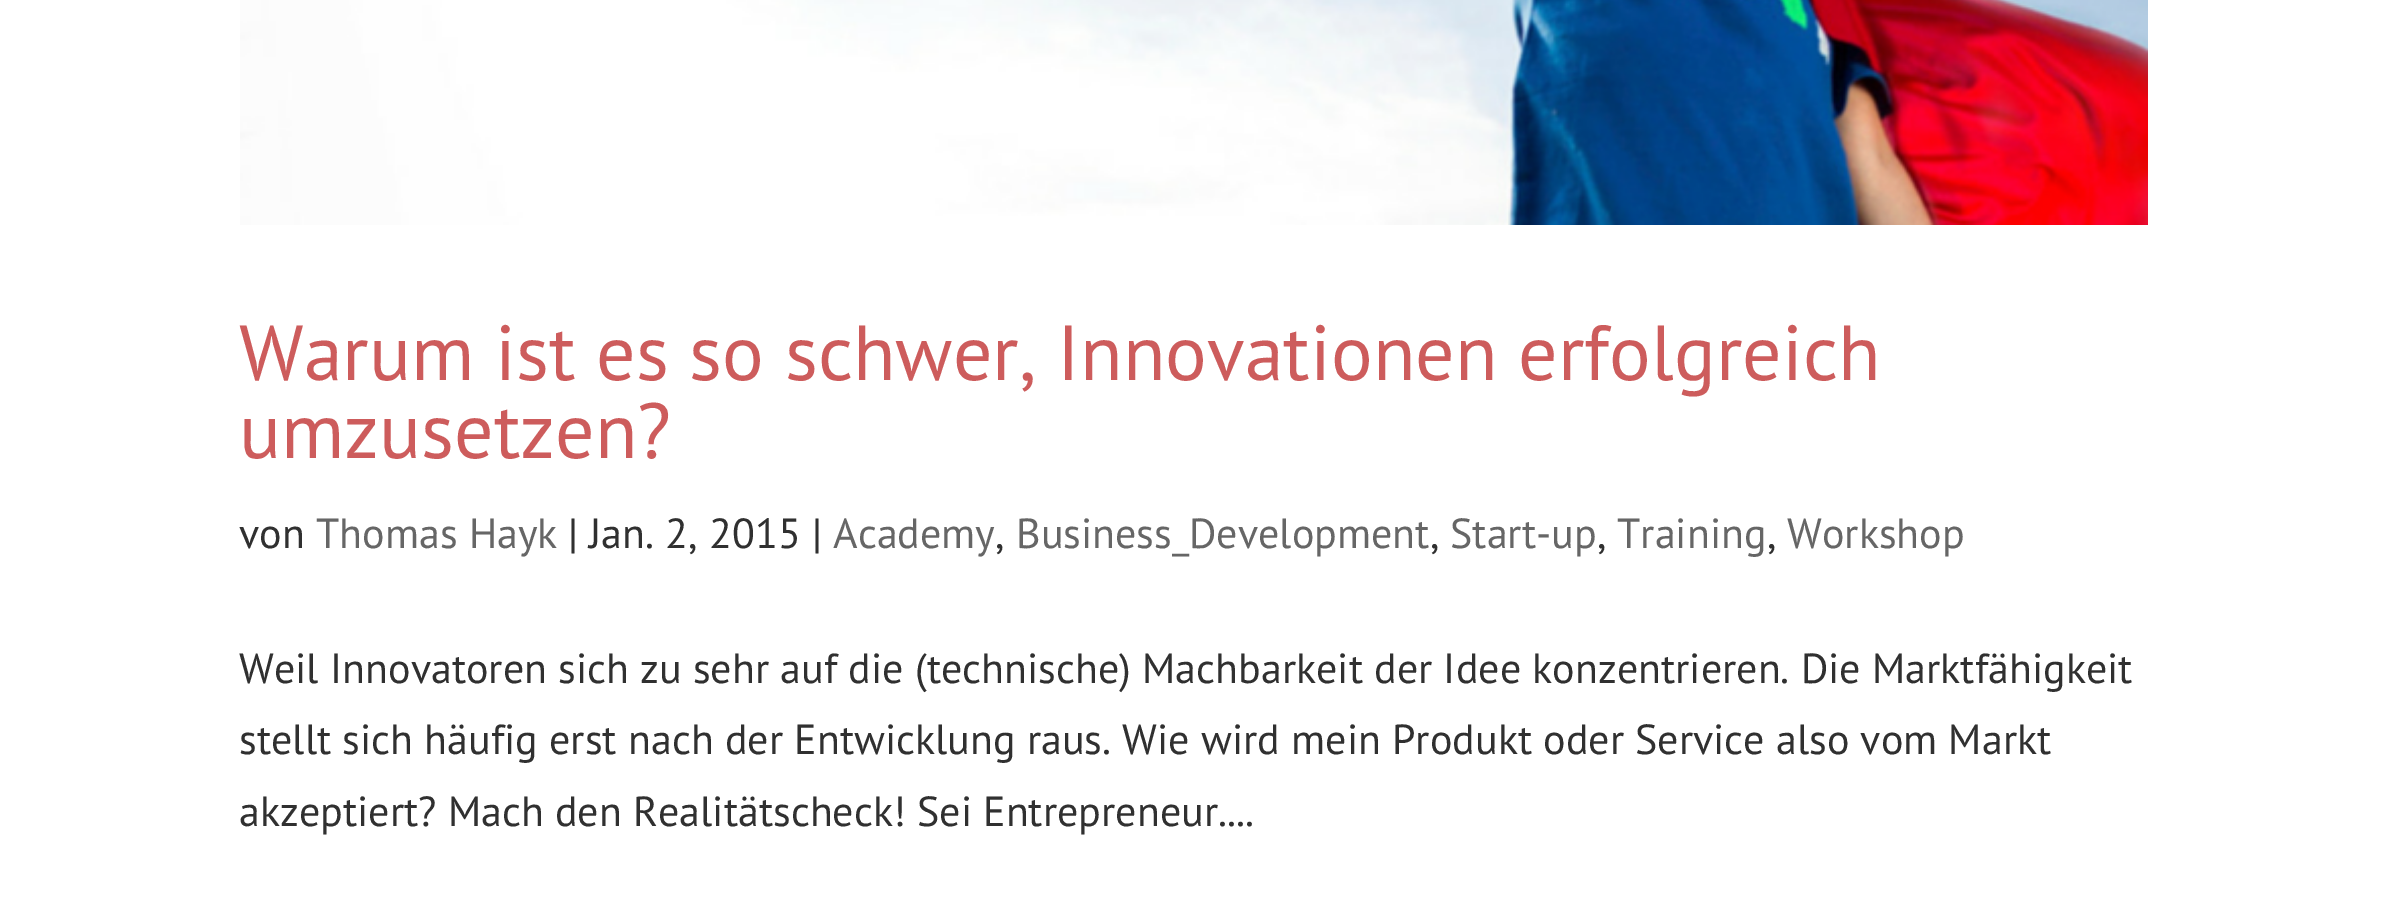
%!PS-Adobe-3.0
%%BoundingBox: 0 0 2386 909
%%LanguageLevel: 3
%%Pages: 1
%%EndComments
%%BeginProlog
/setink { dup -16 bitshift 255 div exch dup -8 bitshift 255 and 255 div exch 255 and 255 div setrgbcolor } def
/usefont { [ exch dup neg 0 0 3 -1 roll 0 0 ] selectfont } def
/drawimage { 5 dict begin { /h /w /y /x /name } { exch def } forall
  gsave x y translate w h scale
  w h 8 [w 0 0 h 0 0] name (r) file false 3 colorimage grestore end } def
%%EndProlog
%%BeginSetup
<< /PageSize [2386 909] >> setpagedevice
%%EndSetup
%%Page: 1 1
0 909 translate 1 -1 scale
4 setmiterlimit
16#FFFFFF setink
0 0 2386 909 rectfill
(img1.raw) 240 0 1908 225 drawimage
/PTSans-Regular 78 usefont
16#CD5C5C setink
239 380 moveto (Warum ist es so schwer, Innovationen erfolgreich) show
239 458 moveto (umzusetzen?) show
/PTSans-Regular 42 usefont
16#303030 setink
239 548 moveto (von) show
16#666666 setink
316 548 moveto (Thomas Hayk) show
16#303030 setink
568 548 moveto (| Jan. 2, 2015 |) show
16#666666 setink
833 548 moveto (Academy) show
16#303030 setink
995 548 moveto (,) show
16#666666 setink
1016 548 moveto (Business_Development) show
16#303030 setink
1430 548 moveto (,) show
16#666666 setink
1450 548 moveto (Start-up) show
16#303030 setink
1597 548 moveto (,) show
16#666666 setink
1617 548 moveto (Training) show
16#303030 setink
1767 548 moveto (,) show
16#666666 setink
1787 548 moveto (Workshop) show
16#303030 setink
[
    [(Weil Innovatoren sich zu sehr auf die \(technische\) Machbarkeit der Idee konzentrieren. Die Marktfähigkeit) 239 683]
    [(stellt sich häufig erst nach der Entwicklung raus. Wie wird mein Produkt oder Service also vom Markt) 239 754]
    [(akzeptiert? Mach den Realitätscheck! Sei Entrepreneur....) 239 826]
] { aload pop moveto show } forall
showpage
%%EOF
